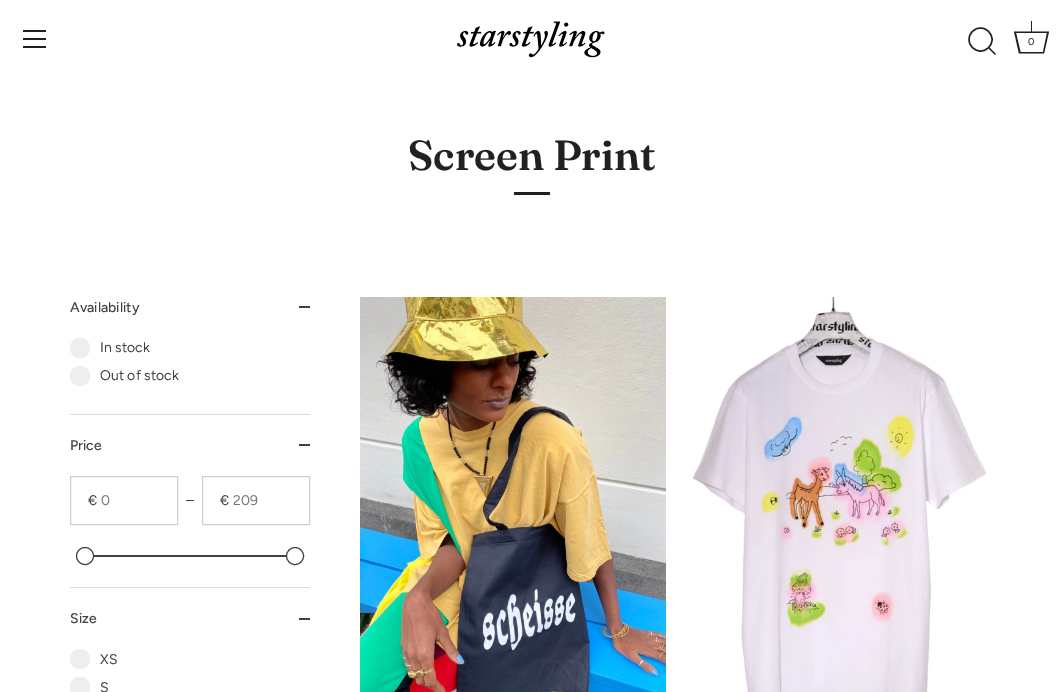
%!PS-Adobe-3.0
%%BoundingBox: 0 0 1064 692
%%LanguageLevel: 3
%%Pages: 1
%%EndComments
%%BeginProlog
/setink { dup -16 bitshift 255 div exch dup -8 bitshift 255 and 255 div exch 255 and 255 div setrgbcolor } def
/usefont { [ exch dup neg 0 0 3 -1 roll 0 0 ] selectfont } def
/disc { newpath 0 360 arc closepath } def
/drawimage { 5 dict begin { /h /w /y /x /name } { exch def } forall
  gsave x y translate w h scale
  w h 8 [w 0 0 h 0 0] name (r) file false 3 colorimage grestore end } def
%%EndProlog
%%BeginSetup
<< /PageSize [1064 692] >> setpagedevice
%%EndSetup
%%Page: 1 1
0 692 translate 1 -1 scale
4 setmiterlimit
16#FFFFFF setink
0 0 1064 692 rectfill
[
    [23 30 23 2 16#212121]
    [23 38 23 2 16#212121]
    [23 46 23 2 16#212121]
] { aload pop setink rectfill } forall
(img1.raw) 457 21 148 37 drawimage
1.4 setlinewidth
980.5 39.5 11.5 disc stroke
1 setlinecap
1 setlinejoin
995 54 moveto 989 48 lineto stroke
1047 33 moveto 1043 52 lineto 1020.5 52 lineto 1016 33 lineto 1047 33 lineto 1049 31.5 moveto 1014 31.5 lineto 1019 53.5 lineto 1044 53.5 lineto closepath fill
1031 21 1 11 rectfill
/Figtree-Regular 10 usefont
1028 45 moveto (0) show
/Fraunces-SemiBold 42 usefont
408 170 moveto (Screen Print) show
514 192 36 3 rectfill
16#DDDDDD setink
70 414 240 1 rectfill
/Figtree-Medium 14 usefont
16#423F3F setink
70 312 moveto (Availability) show
299 306 11 2 rectfill
16#EEEEEE setink
80 348 10 disc fill
/Figtree-Regular 14 usefont
16#423F3F setink
100 352 moveto (In stock) show
16#EEEEEE setink
80 376 10 disc fill
16#423F3F setink
100 380 moveto (Out of stock) show
16#DDDDDD setink
70 587 240 1 rectfill
/Figtree-Medium 14 usefont
16#423F3F setink
70 450 moveto (Price) show
299 444 11 2 rectfill
16#D0CFCF setink
1 setlinewidth
0 setlinecap
0 setlinejoin
70.5 476.5 107 48 rectstroke
/Figtree-Regular 14 usefont
16#423F3F setink
88 505 moveto (€) show
16#757575 setink
101 505 moveto (0) show
16#423F3F setink
186 500 8 1 rectfill
16#D0CFCF setink
202.5 476.5 107 48 rectstroke
16#423F3F setink
220 505 moveto (€) show
16#757575 setink
233 505 moveto (209) show
16#423F3F setink
85 555 210 2 rectfill
16#FFFFFF setink
85 556 8.5 disc gsave fill grestore
16#423F3F setink
stroke
16#FFFFFF setink
295 556 8.5 disc gsave fill grestore
16#423F3F setink
stroke
/Figtree-Medium 14 usefont
70 623 moveto (Size) show
299 618 11 2 rectfill
16#EEEEEE setink
80 659 10 disc fill
/Figtree-Regular 14 usefont
16#423F3F setink
100 664 moveto (XS) show
16#EEEEEE setink
80 687 10 disc fill
16#423F3F setink
100 692 moveto (S) show
(img2.raw) 360 297 306 395 drawimage
(img3.raw) 692 297 295 395 drawimage
showpage
%%EOF
